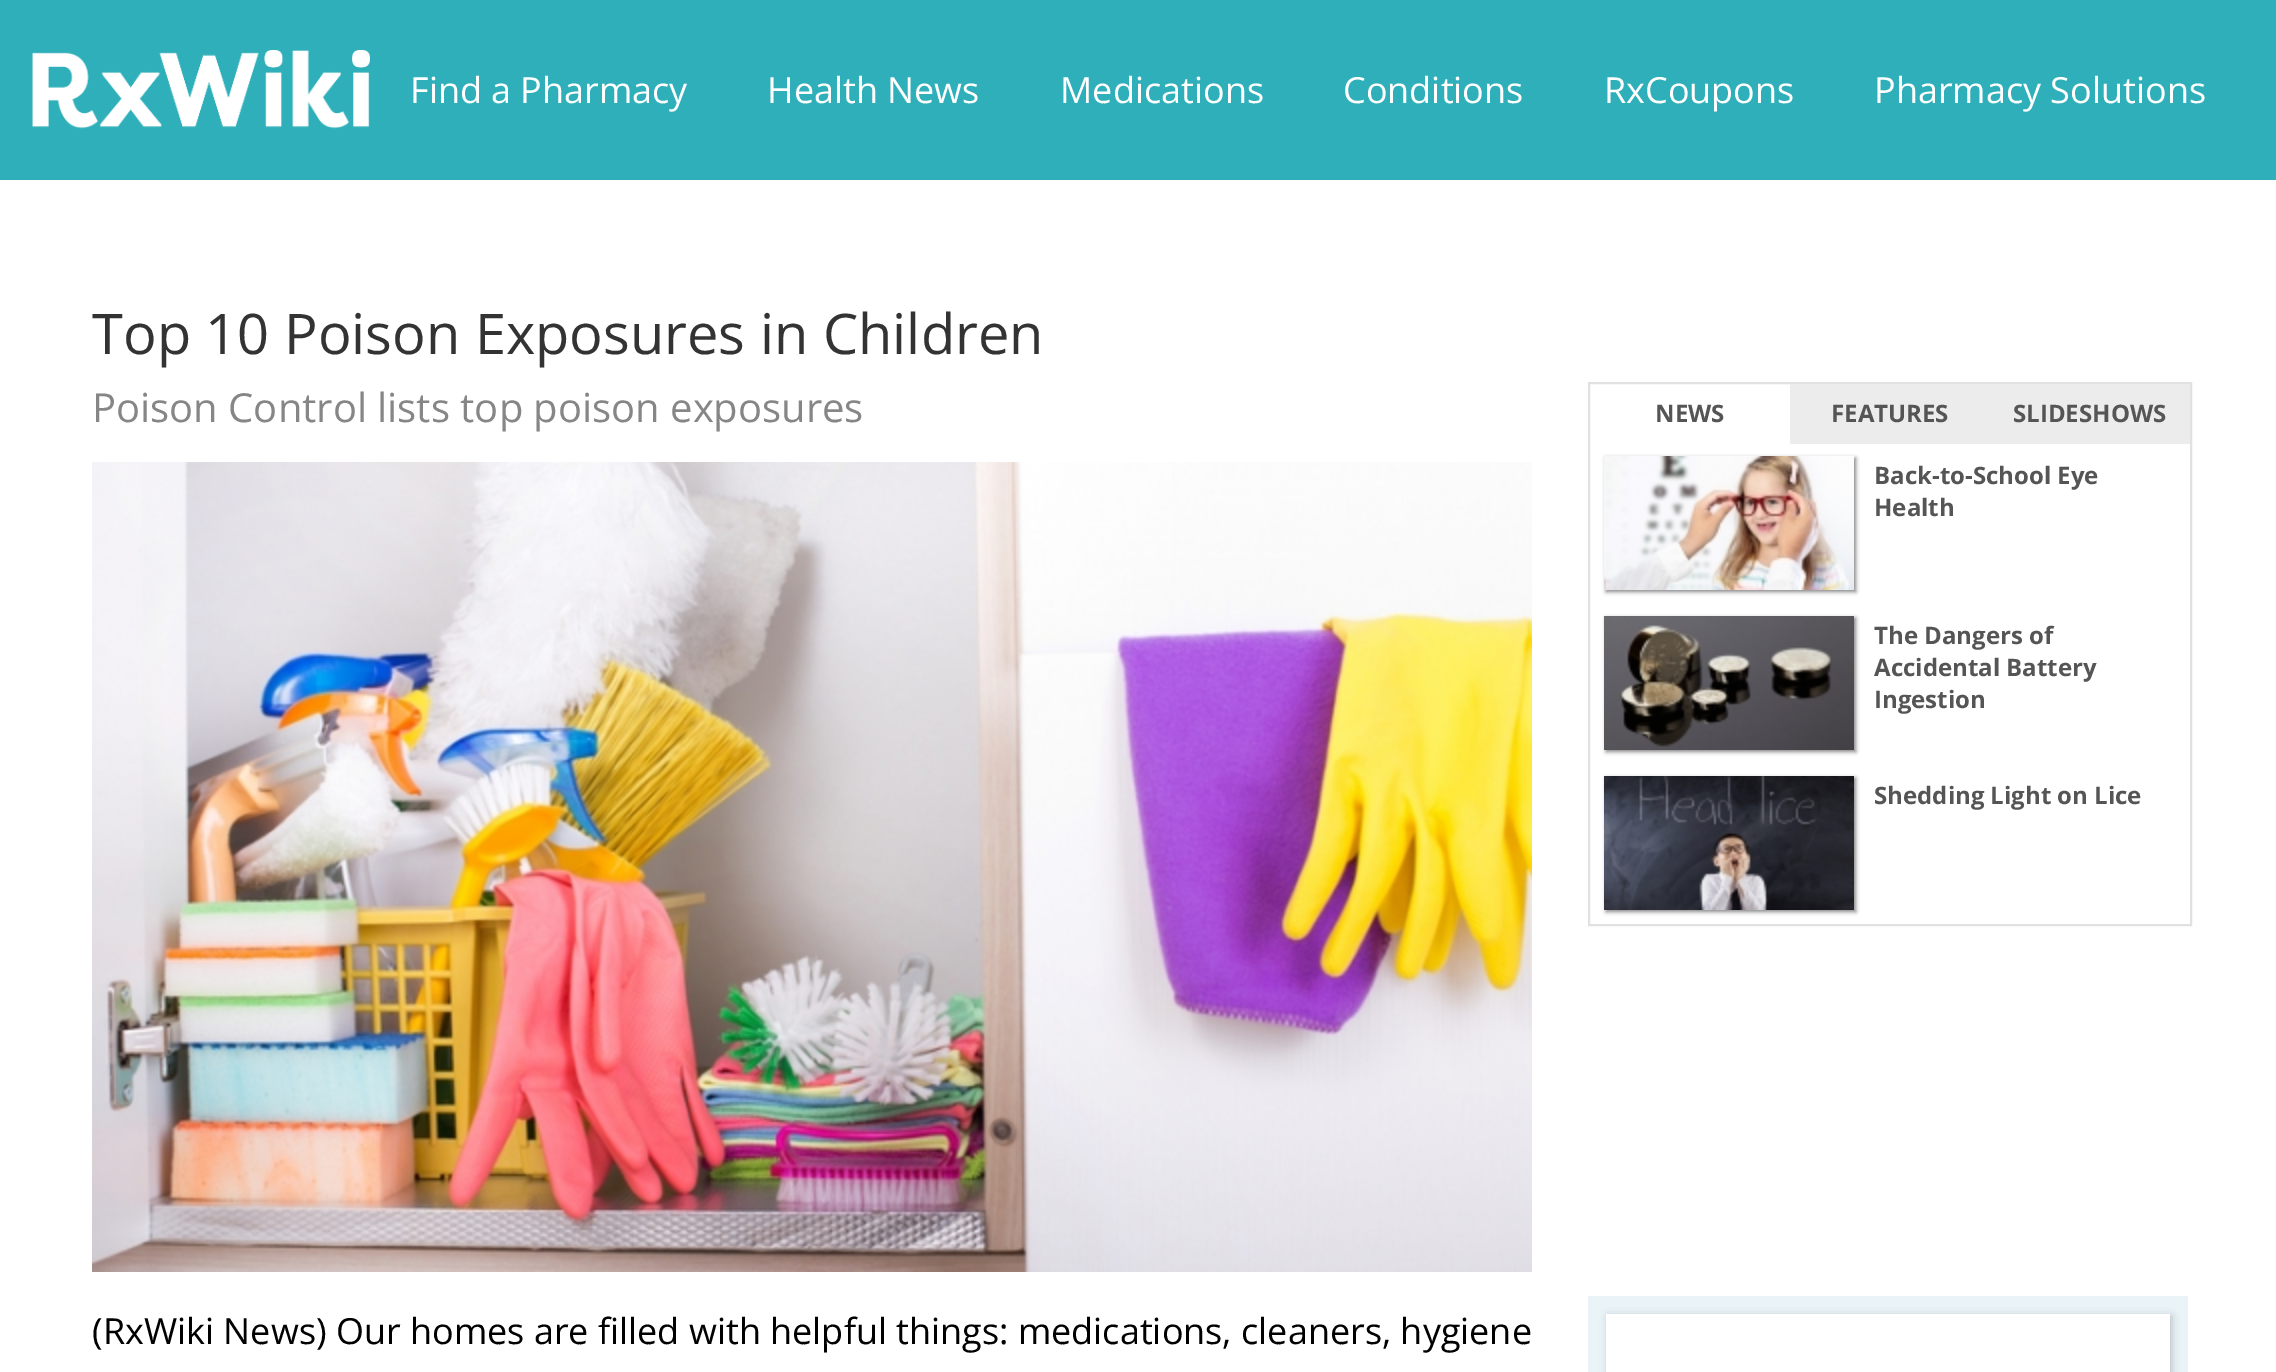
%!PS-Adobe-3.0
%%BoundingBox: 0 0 2276 1372
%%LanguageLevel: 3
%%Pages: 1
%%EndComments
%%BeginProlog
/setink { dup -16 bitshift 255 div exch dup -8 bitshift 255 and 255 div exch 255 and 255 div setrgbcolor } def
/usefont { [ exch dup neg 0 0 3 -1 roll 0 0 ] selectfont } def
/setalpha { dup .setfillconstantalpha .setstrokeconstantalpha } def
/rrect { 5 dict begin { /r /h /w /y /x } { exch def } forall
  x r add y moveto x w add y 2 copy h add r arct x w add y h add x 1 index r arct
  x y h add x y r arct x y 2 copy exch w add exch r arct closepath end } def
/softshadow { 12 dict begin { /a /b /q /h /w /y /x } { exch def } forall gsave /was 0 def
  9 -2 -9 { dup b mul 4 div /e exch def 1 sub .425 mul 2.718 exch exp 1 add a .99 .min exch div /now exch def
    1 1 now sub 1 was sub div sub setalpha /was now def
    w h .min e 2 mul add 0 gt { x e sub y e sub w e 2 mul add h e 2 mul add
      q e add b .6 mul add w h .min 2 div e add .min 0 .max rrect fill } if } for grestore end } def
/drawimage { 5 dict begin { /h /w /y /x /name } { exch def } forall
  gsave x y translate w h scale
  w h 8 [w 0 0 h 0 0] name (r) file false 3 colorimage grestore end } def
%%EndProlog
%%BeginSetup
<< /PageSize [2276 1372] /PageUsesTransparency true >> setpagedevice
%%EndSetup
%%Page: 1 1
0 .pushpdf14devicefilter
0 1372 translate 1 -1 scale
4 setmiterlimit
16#FFFFFF setink
0 0 2276 1372 rectfill
16#2FAFB9 setink
0 0 2276 180 rectfill
(img1.raw) 32 50 338 79 drawimage
/OpenSans-Regular 36 usefont
16#FFFFFF setink
[
    [(Find a Pharmacy) 410 103]
    [(Health News) 767 103]
    [(Medications) 1060 103]
    [(Conditions) 1343 103]
    [(RxCoupons) 1604 103]
    [(Pharmacy Solutions) 1874 103]
] { aload pop moveto show } forall
/OpenSans-Regular 56 usefont
16#333333 setink
92 354 moveto (Top 10 Poison Exposures in Children) show
/OpenSans-Regular 40 usefont
16#868686 setink
92 422 moveto (Poison Control lists top poison exposures) show
(img2.raw) 92 462 1440 810 drawimage
/OpenSans-Regular 36 usefont
16#000000 setink
92 1344 moveto (\(RxWiki News\) Our homes are filled with helpful things: medications, cleaners, hygiene) show
16#E1E1E1 setink
2 setlinewidth
1589 383 602 542 rectstroke
16#ECECEC setink
1790 384 400 60 rectfill
/OpenSans-Bold 24 usefont
16#555555 setink
[
    [(NEWS) 1655 422]
    [(FEATURES) 1831 422]
    [(SLIDESHOWS) 2013 422]
] { aload pop moveto show } forall
16#888888 setink
1606 458 250 134 0 2 1 softshadow
(img3.raw) 1604 456 250 134 drawimage
16#555555 setink
1874 484 moveto (Back-to-School Eye) show
1874 516 moveto (Health) show
16#888888 setink
1606 618 250 134 0 2 1 softshadow
(img4.raw) 1604 616 250 134 drawimage
16#555555 setink
[
    [(The Dangers of) 1874 644]
    [(Accidental Battery) 1874 676]
    [(Ingestion) 1874 708]
] { aload pop moveto show } forall
16#888888 setink
1606 778 250 134 0 2 1 softshadow
(img5.raw) 1604 776 250 134 drawimage
16#555555 setink
1874 804 moveto (Shedding Light on Lice) show
16#EAF3F7 setink
1588 1296 600 76 rectfill
16#000000 setink
1608 1316 564 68 0 4 0.2 softshadow
16#FFFFFF setink
1606 1314 564 58 rectfill
.poppdf14devicefilter showpage
%%EOF
